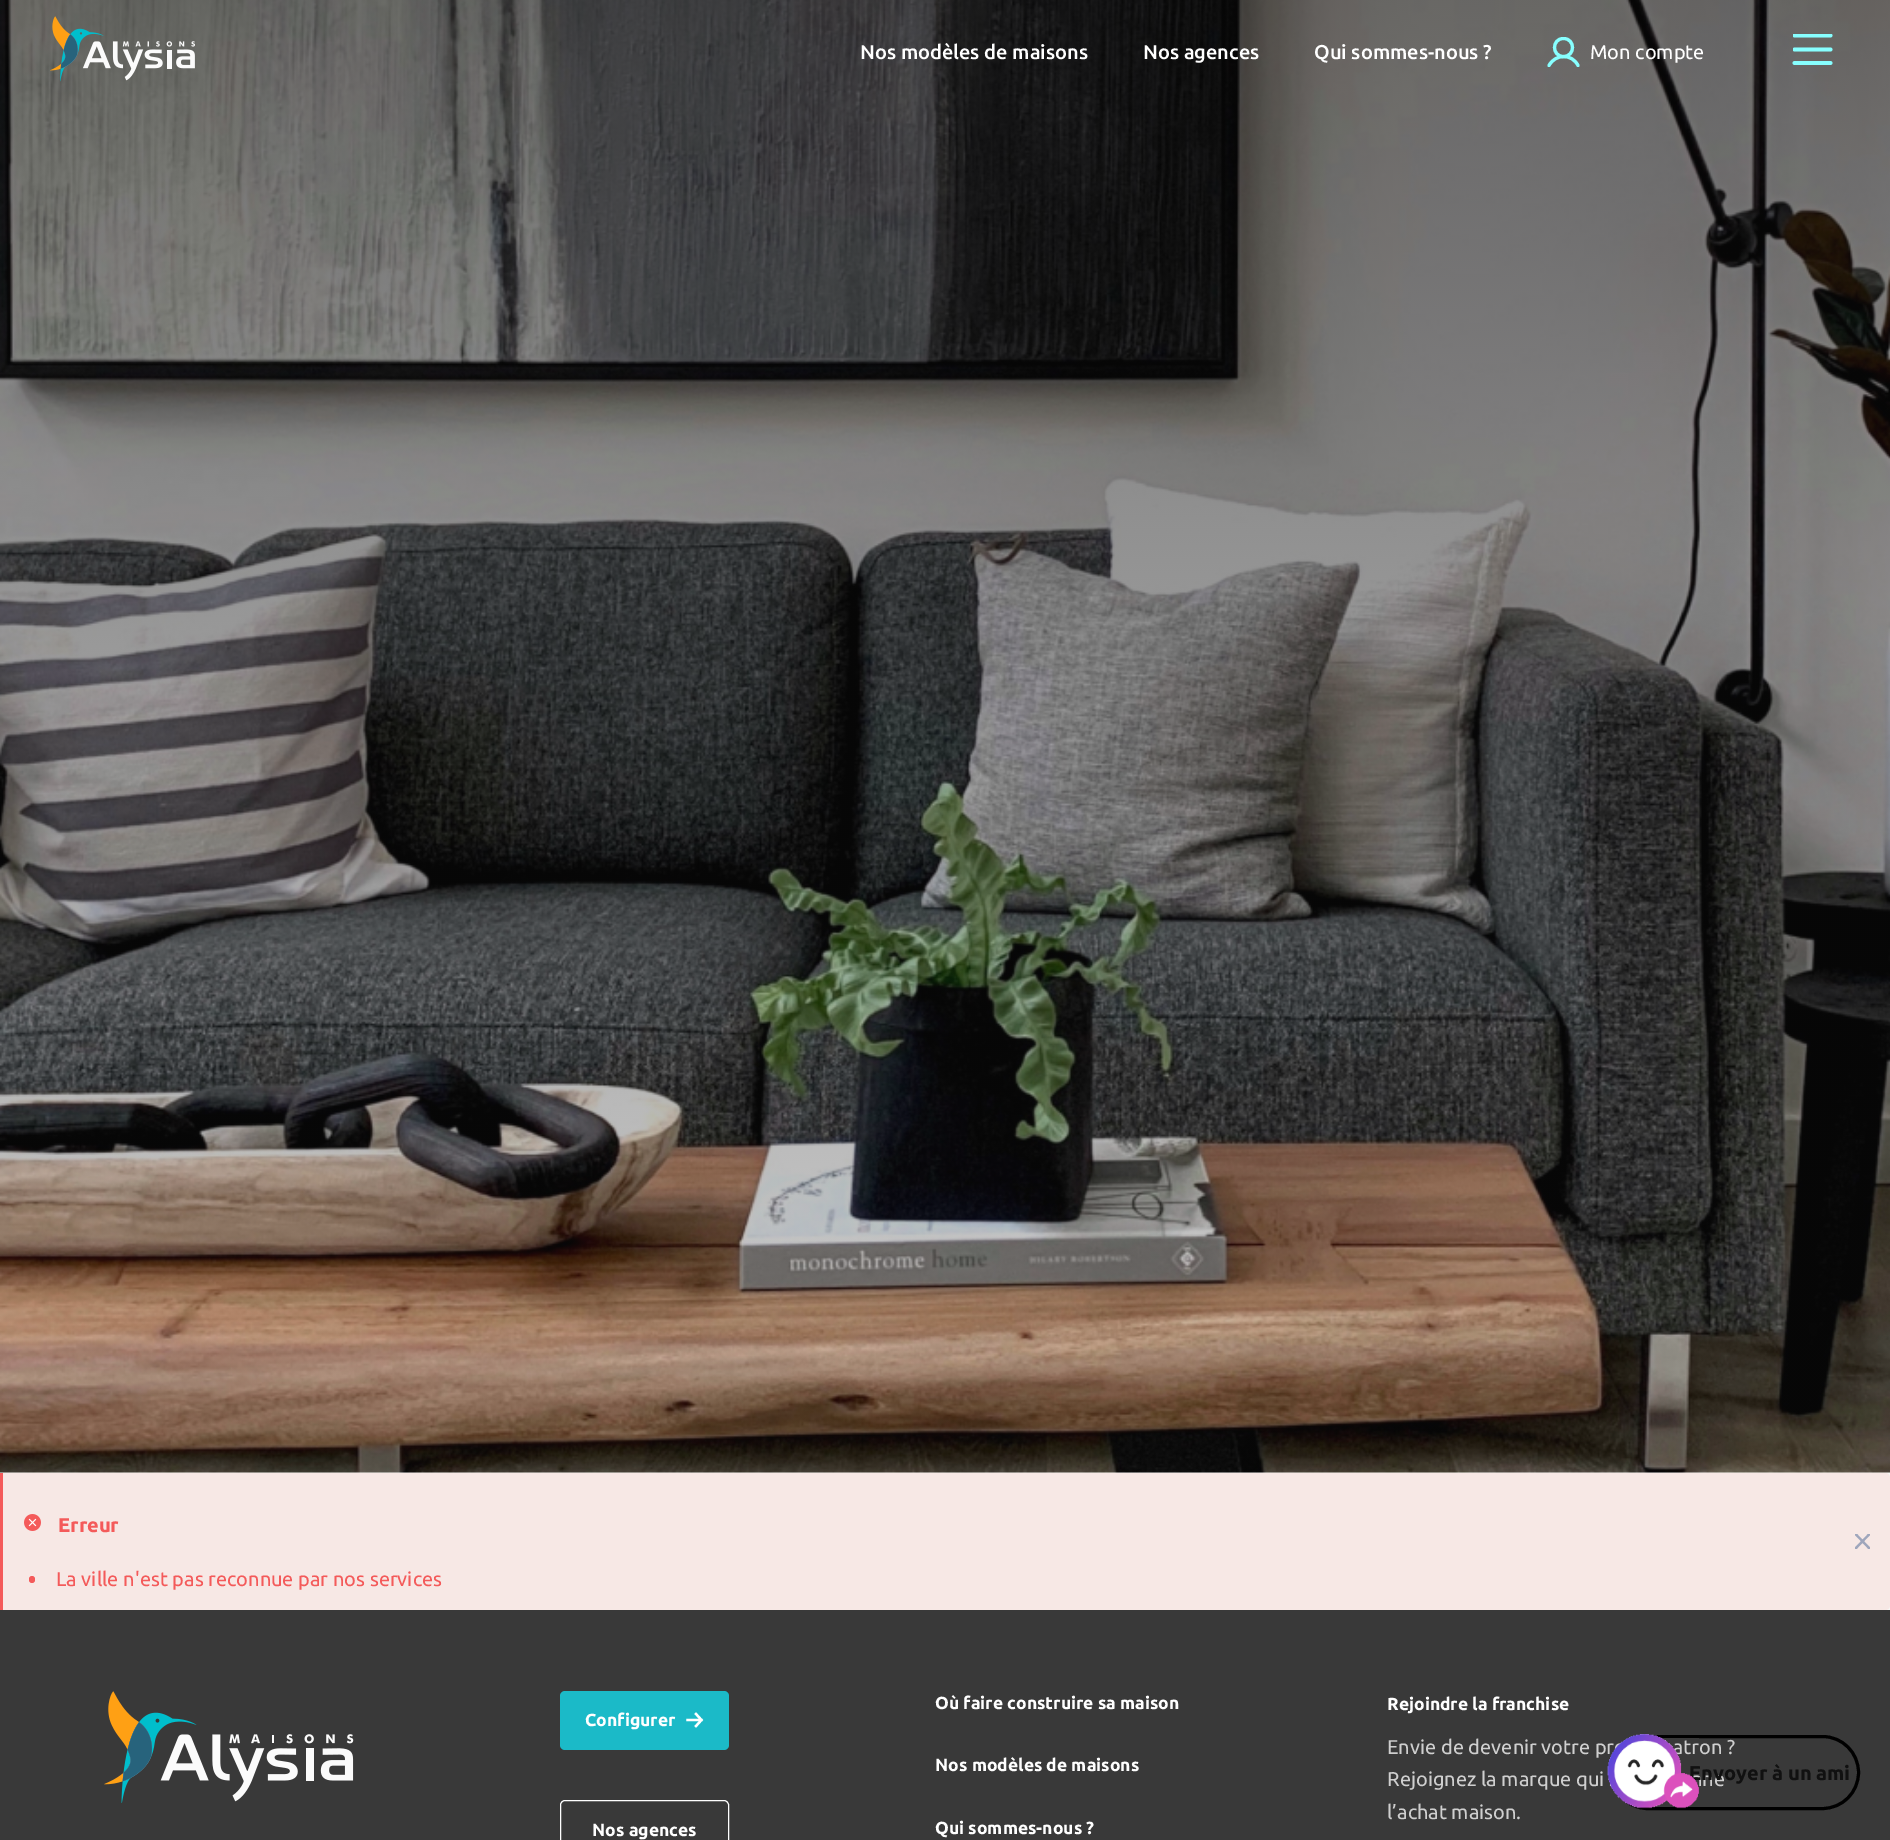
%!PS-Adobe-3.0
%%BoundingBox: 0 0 1890 1840
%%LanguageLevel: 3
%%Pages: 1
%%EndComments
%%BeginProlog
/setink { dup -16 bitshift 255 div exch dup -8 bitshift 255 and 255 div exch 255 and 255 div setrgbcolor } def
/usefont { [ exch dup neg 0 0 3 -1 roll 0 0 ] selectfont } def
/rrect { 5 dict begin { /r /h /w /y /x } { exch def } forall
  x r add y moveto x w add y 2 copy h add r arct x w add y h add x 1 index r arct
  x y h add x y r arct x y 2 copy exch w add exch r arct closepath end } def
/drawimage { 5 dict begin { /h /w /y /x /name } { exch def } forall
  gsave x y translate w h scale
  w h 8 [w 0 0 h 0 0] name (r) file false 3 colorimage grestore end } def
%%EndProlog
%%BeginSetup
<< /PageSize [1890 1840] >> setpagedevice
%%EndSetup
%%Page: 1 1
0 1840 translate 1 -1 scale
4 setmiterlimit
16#393939 setink
0 0 1890 1840 rectfill
16#F7F7F5 setink
0 1472 1890 138 rectfill
(img2.raw) 0 0 1890 1473 drawimage
(img1.raw) 50 16 145 66 drawimage
/Ubuntu-Medium 20 usefont
16#FFFFFF setink
[
    [(Nos modèles de maisons) 860 59]
    [(Nos agences) 1143 59]
    [(Qui sommes-nous ?) 1314 59]
] { aload pop moveto show } forall
16#87FFFF setink
3.1 setlinewidth
1563.5 56.5 moveto 1575.5 56.5 1575.5 38.5 1563.5 38.5 curveto 1551.5 38.5 1551.5 56.5 1563.5 56.5 curveto closepath stroke
1 setlinecap
1 setlinejoin
1549 65.5 moveto 1555.5 53.5 1572 53.5 1578 65.5 curveto stroke
/Ubuntu-Regular 20 usefont
16#FFFFFF setink
1590 59 moveto (Mon compte) show
gsave
1793 34 40 31 rectclip
16#87FFFF setink
3.8 setlinewidth
0 setlinejoin
1794.5 35.5 moveto 1830.5 35.5 lineto 1794.5 49.5 moveto 1830.5 49.5 lineto stroke
grestore
16#87FFFF setink
3.8 setlinewidth
0 setlinejoin
1794.5 63 moveto 1830.5 63 lineto stroke
16#F7E8E5 setink
0 1473 moveto 1885 1473 lineto 1888 1473 1890 1475 1890 1478 curveto 1890 1605 lineto 1890 1608 1888 1610 1885 1610 curveto 0 1610 lineto closepath fill
16#F45A5A setink
0 1473 3 137 rectfill
(img3.raw) 24 1514 17 17 drawimage
/Ubuntu-Bold 20 usefont
58 1532 moveto (Erreur) show
29 1576 6 7 3 rrect fill
/Ubuntu-Regular 20 usefont
56 1586 moveto (La ville n'est pas reconnue par nos services) show
gsave
1855 1534 15 15 rectclip
16#9FA6BC setink
2.2 setlinewidth
1869 1548 moveto 1856 1534.5 lineto 1869 1534.5 moveto 1856 1548 lineto stroke
grestore
(img4.raw) 104 1691 250 112 drawimage
16#1BBAC8 setink
560 1691 169 59 5 rrect fill
/Ubuntu-Bold 17.5 usefont
16#FFFFFF setink
585 1726 moveto (Configurer) show
2.3 setlinewidth
2 setlinecap
687.5 1720 moveto 701.5 1720 lineto 701.5 1720 moveto 696 1714 lineto 701.5 1720 moveto 696 1726 lineto stroke
16#FEFEFE setink
1 setlinewidth
0 setlinecap
560.5 1800.5 168 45 4.5 rrect stroke
16#FFFFFF setink
[
    [(Nos agences) 592 1836]
    [(Où faire construire sa maison) 935 1709]
    [(Nos modèles de maisons) 935 1771]
    [(Qui sommes-nous ?) 935 1834]
    [(Rejoindre la franchise) 1387 1710]
] { aload pop moveto show } forall
/Ubuntu-Regular 20 usefont
16#CFCFCF setink
[
    [(Envie de devenir votre pr) 1387 1754]
    [(atron ?) 1673 1754]
    [(Rejoignez la marque qui) 1387 1786]
    [(nne) 1691 1786]
    [(l’achat maison.) 1387 1819]
] { aload pop moveto show } forall
16#000000 setink
3 setlinewidth
1611.5 1736.5 247 72 36 rrect stroke
/Ubuntu-Bold 20 usefont
16#111111 setink
1689 1780 moveto (Envoyer à un ami) show
(img5.raw) 1607 1734 92 75 drawimage
showpage
%%EOF
